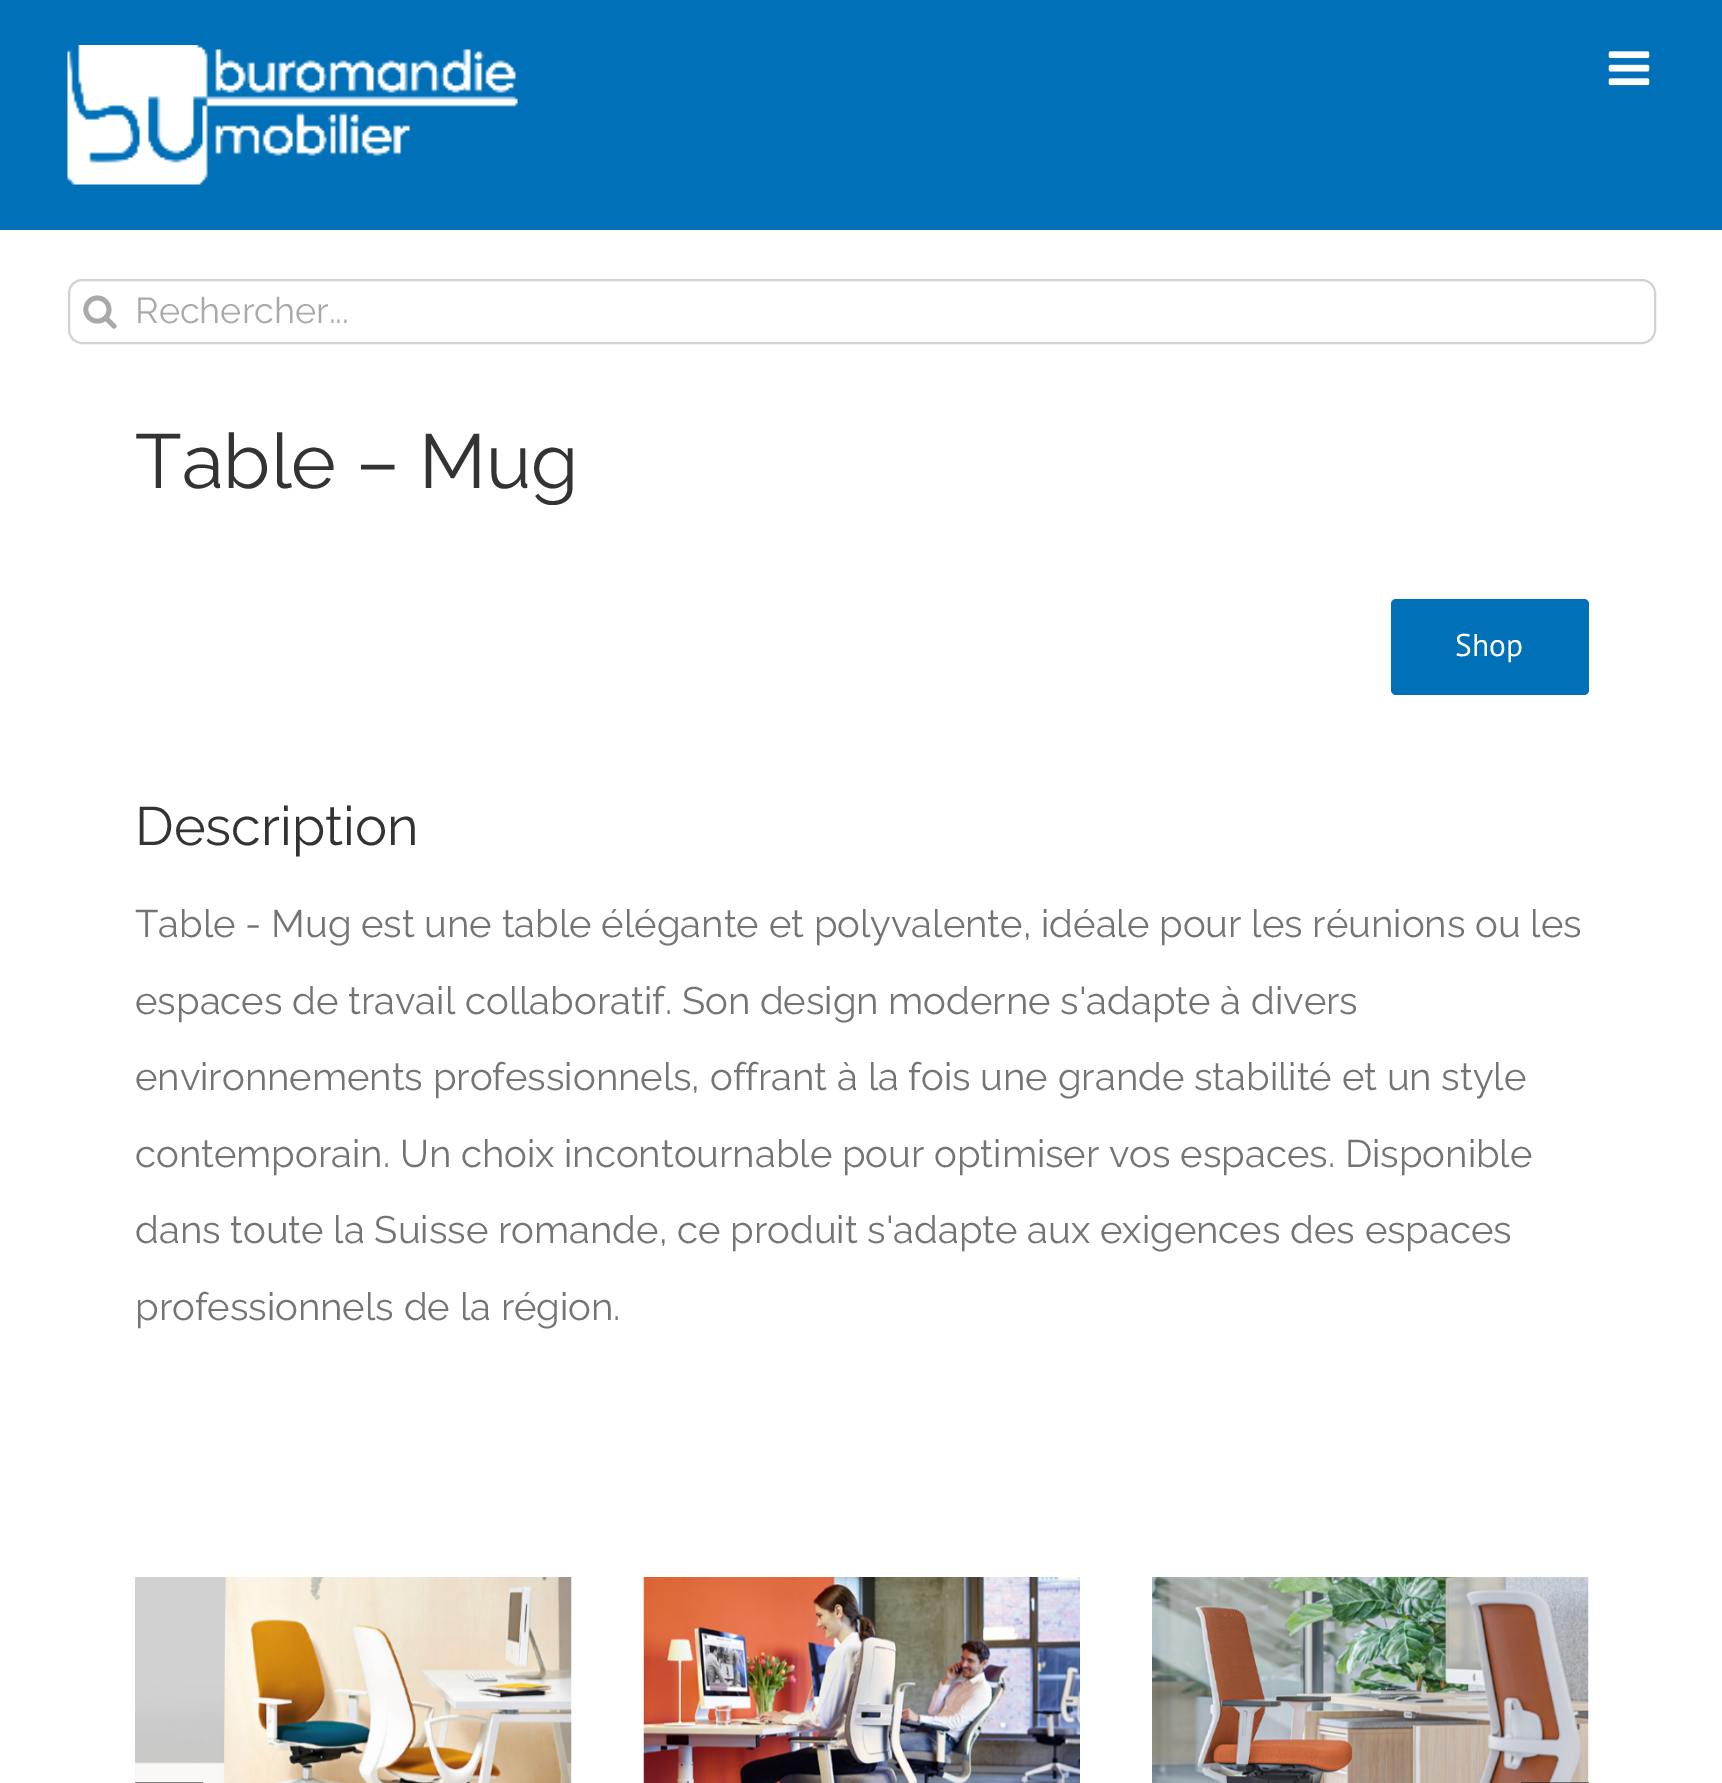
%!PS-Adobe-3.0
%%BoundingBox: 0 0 1722 1783
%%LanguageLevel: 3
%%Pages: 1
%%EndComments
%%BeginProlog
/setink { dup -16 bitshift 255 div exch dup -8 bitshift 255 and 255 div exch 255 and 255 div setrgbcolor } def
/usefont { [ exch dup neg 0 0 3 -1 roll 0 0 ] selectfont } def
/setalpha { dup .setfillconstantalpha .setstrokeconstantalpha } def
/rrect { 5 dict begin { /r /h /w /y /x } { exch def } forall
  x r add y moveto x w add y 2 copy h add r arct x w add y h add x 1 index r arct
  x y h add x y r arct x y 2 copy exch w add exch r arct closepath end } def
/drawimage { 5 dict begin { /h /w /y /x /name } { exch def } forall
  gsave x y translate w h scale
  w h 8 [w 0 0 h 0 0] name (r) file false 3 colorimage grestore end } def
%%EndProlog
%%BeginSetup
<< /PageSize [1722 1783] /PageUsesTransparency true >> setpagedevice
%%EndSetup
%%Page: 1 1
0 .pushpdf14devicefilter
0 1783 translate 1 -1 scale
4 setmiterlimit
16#FFFFFF setink
0 0 1722 1783 rectfill
16#0071B8 setink
0 0 1722 230 rectfill
(img1.raw) 67 45 451 140 drawimage
(img2.raw) 1608 51 42 35 drawimage
16#D2D2D2 setink
2 setlinewidth
69 280 1586 63 13 rrect stroke
(img3.raw) 83 295 34 34 drawimage
/Raleway-Regular 36 usefont
16#AAA9A9 setink
135 323 moveto (Rechercher...) show
/Raleway-Regular 76.5 usefont
16#333333 setink
135 488 moveto (Table – Mug) show
16#0071B8 setink
1391 599 198 96 5 rrect fill
/PTSans-Regular 31.5 usefont
16#FFFFFF setink
1455 656 moveto (Shop) show
/Raleway-Regular 54 usefont
16#333333 setink
135 845 moveto (Description) show
/Raleway-Regular 38.25 usefont
16#747474 setink
[
    [(Table - Mug est une table élégante et polyvalente, idéale pour les réunions ou les) 135 937]
    [(espaces de travail collaboratif. Son design moderne s'adapte à divers) 135 1014]
    [(environnements professionnels, offrant à la fois une grande stabilité et un style) 135 1090]
    [(contemporain. Un choix incontournable pour optimiser vos espaces. Disponible) 135 1167]
    [(dans toute la Suisse romande, ce produit s'adapte aux exigences des espaces) 135 1243]
    [(professionnels de la région.) 135 1320]
] { aload pop moveto show } forall
(img4.raw) 135 1577 437 206 drawimage
(img5.raw) 643 1577 437 206 drawimage
(img6.raw) 1152 1577 437 206 drawimage
16#828180 setink
135 1782 68 1 rectfill
0.48 setalpha
16#000000 setink
1521 1782 68 1 rectfill
.poppdf14devicefilter showpage
%%EOF
